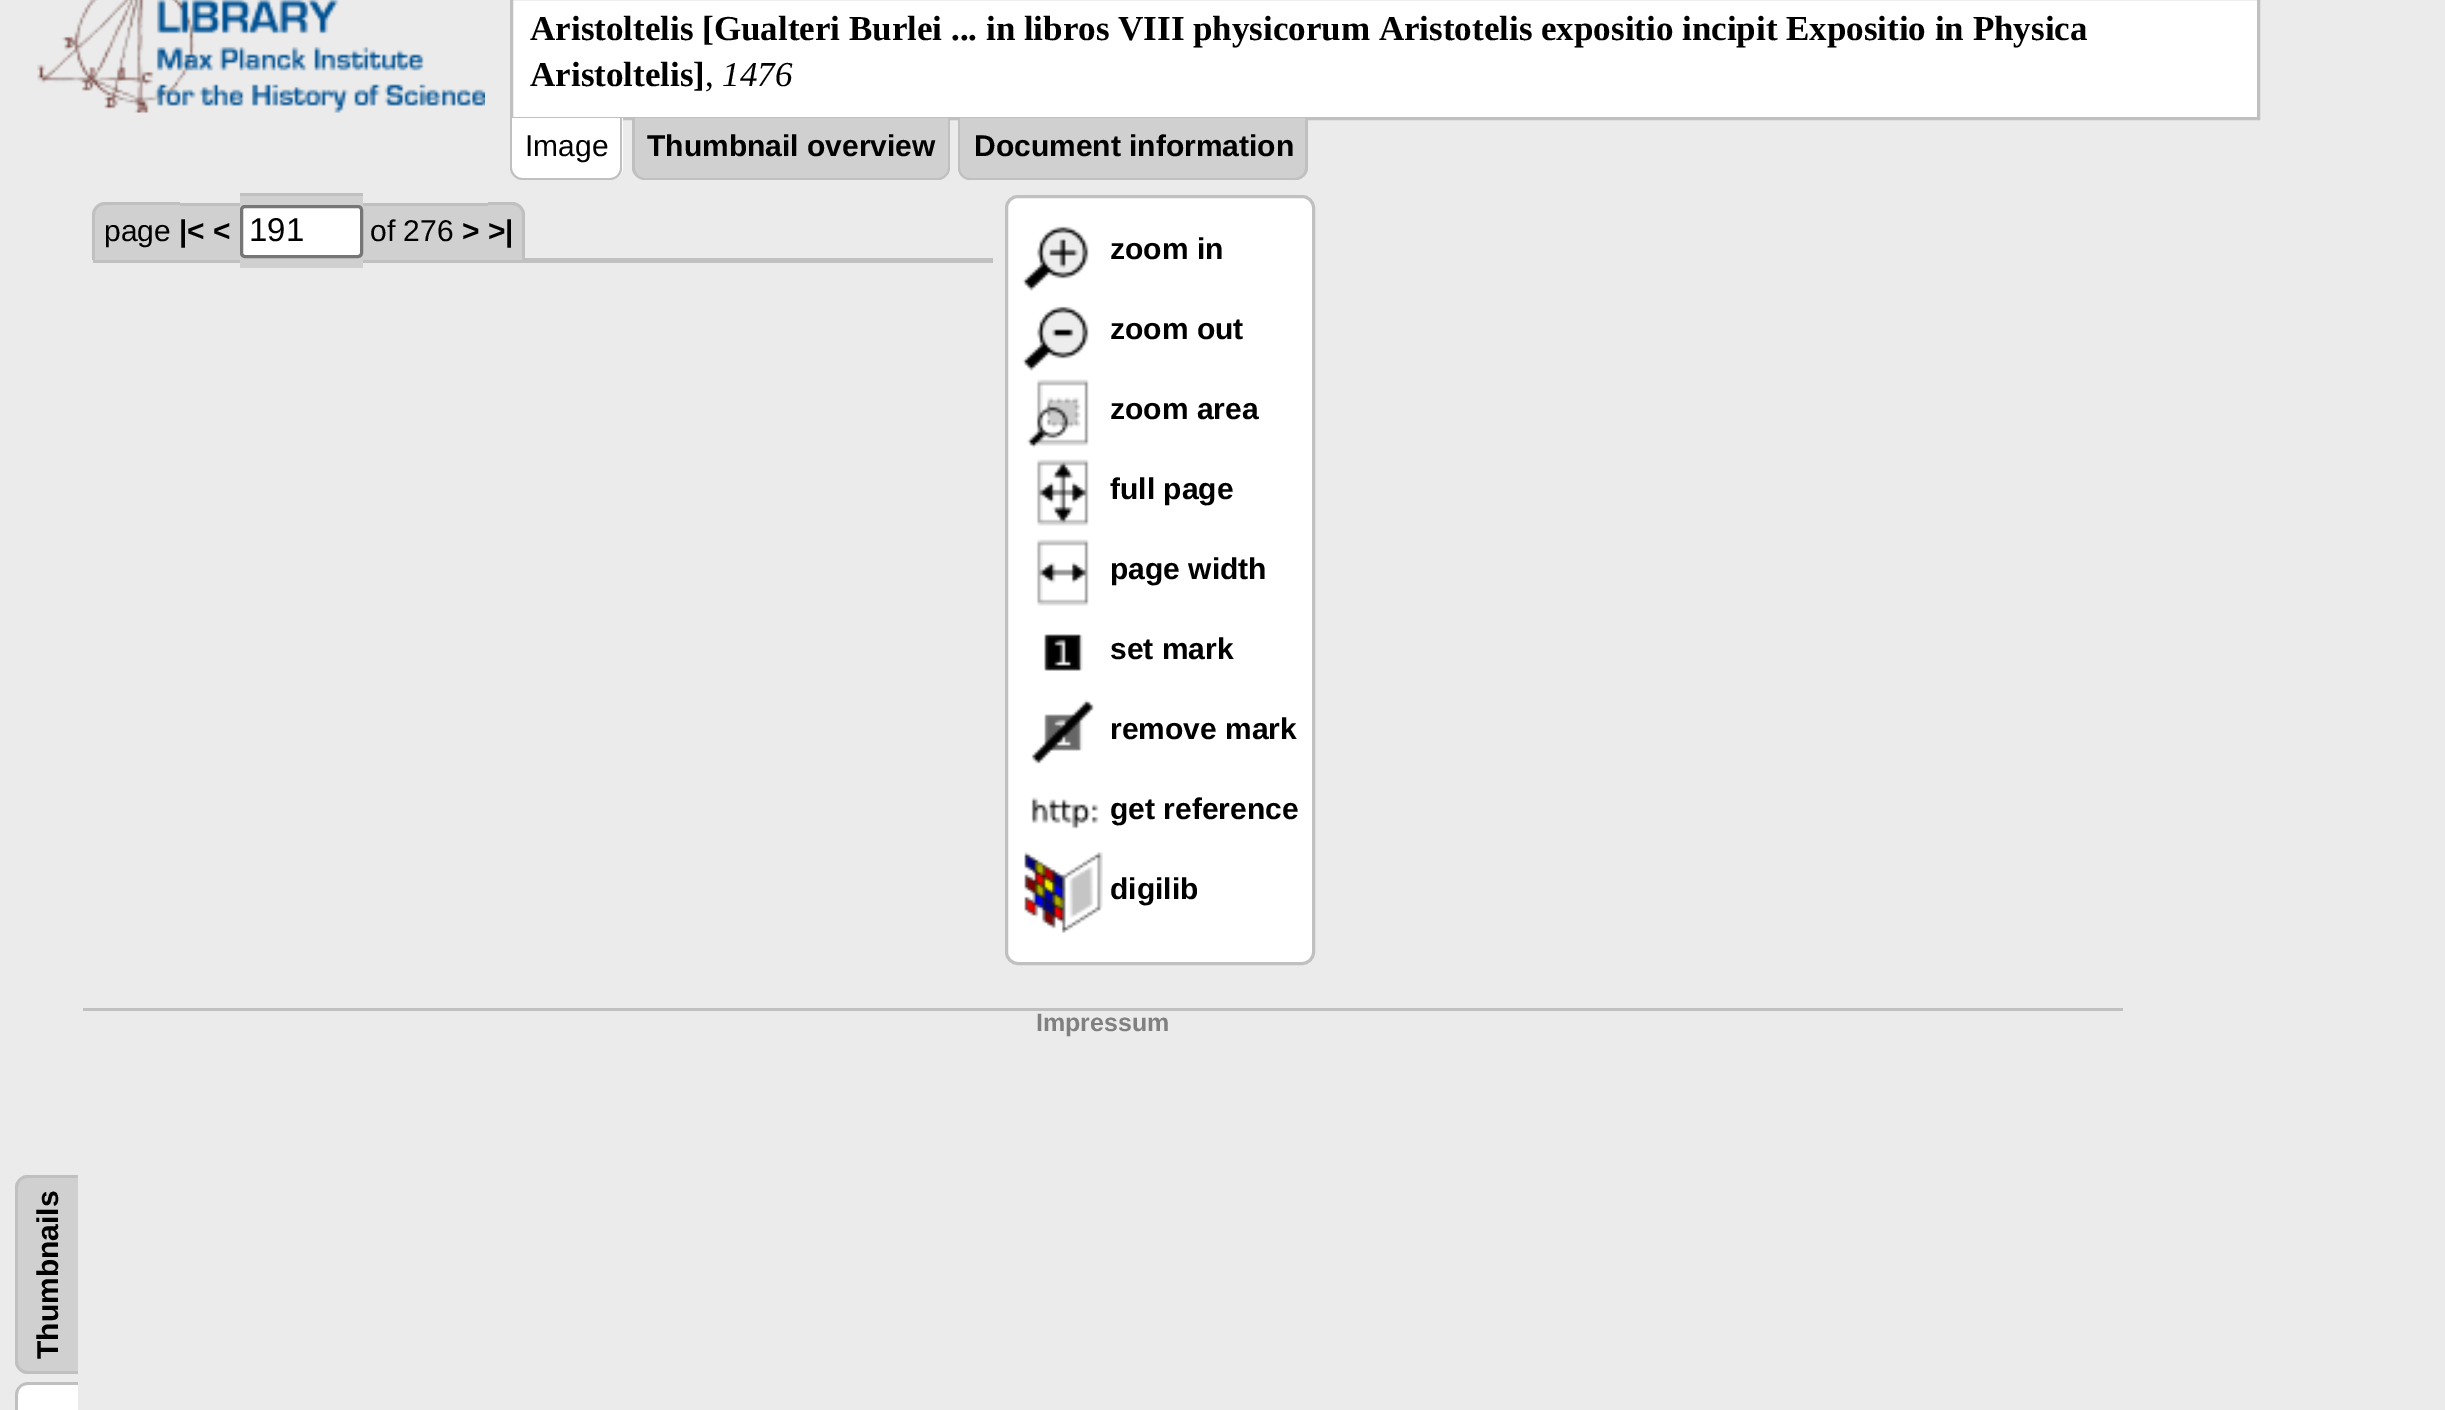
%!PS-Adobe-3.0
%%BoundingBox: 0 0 2445 1410
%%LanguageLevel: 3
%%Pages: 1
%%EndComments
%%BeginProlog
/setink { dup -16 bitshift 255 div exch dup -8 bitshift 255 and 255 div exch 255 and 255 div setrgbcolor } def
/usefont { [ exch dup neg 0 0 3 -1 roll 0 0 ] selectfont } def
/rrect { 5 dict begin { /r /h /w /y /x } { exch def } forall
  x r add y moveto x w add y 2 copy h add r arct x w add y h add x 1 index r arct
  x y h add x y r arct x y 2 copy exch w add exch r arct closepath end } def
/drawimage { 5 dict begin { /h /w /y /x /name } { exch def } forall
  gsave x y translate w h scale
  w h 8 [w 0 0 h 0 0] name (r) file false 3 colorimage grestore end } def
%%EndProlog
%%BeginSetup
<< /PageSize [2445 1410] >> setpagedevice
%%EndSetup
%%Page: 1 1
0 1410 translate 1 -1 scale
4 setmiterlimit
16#EBEBEB setink
0 0 2445 1410 rectfill
(img1.raw) 37 0 448 113 drawimage
16#FFFFFF setink
511.5 -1.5 moveto 2258.5 -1.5 lineto 2258.5 118.5 lineto 511.5 118.5 lineto closepath gsave fill grestore
16#C0C0C0 setink
3 setlinewidth
stroke
/LiberationSerif-Bold 35 usefont
16#000000 setink
530 40 moveto (Aristoltelis [Gualteri Burlei ... in libros VIII physicorum Aristotelis expositio incipit Expositio in Physica) show
530 86 moveto (Aristoltelis]) show
/LiberationSerif-Regular 35 usefont
705 86 moveto (,) show
/LiberationSerif-Italic 35 usefont
722 86 moveto (1476) show
16#FFFFFF setink
510 118 moveto 623 118 lineto 623 167 lineto 623 174 617 180 610 180 curveto 523 180 lineto 516 180 510 174 510 167 curveto closepath fill
16#C0C0C0 setink
510 118 moveto 622 118 lineto 622 168 lineto 622 174 617 180 610 180 curveto 522 180 lineto 516 180 510 174 510 168 curveto closepath 512 118 moveto 620 118 lineto 620 168 lineto 620 173 616 178 610 178 curveto 522 178 lineto 517 178 512 173 512 168 curveto closepath eofill
/LiberationSans-Regular 30 usefont
16#000000 setink
525 156 moveto (Image) show
16#D0D0D0 setink
633 118 moveto 950 118 lineto 950 167 lineto 950 174 944 180 937 180 curveto 646 180 lineto 639 180 633 174 633 167 curveto closepath fill
16#C0C0C0 setink
632 118 moveto 950 118 lineto 950 168 lineto 950 174 944 180 938 180 curveto 645 180 lineto 638 180 632 174 632 168 curveto closepath 635 118 moveto 948 118 lineto 948 168 lineto 948 173 943 178 938 178 curveto 645 178 lineto 639 178 635 173 635 168 curveto closepath eofill
/LiberationSans-Bold 30 usefont
16#000000 setink
647 156 moveto (Thumbnail overview) show
16#D0D0D0 setink
958 118 moveto 1308 118 lineto 1308 167 lineto 1308 174 1302 180 1295 180 curveto 971 180 lineto 964 180 958 174 958 167 curveto closepath fill
16#C0C0C0 setink
958 118 moveto 1308 118 lineto 1308 168 lineto 1308 174 1302 180 1295 180 curveto 970 180 lineto 963 180 958 174 958 168 curveto closepath 960 118 moveto 1305 118 lineto 1305 168 lineto 1305 173 1301 178 1295 178 curveto 970 178 lineto 964 178 960 173 960 168 curveto closepath eofill
16#000000 setink
974 156 moveto (Document information) show
16#C0C0C0 setink
93 258 900 5 rectfill
16#D0D0D0 setink
106 203 moveto 180 203 lineto 180 260 lineto 93 260 lineto 93 216 lineto 93 209 99 203 106 203 curveto closepath fill
16#C0C0C0 setink
105 202 moveto 180 202 lineto 180 260 lineto 92 260 lineto 92 215 lineto 92 208 98 202 105 202 curveto closepath 105 205 moveto 180 205 lineto 180 260 lineto 95 260 lineto 95 215 lineto 95 209 99 205 105 205 curveto closepath eofill
[
    [180 206 25 54 16#D0D0D0]
    [180 203 25 3 16#C0C0C0]
    [205 203 8 57 16#D0D0D0]
    [205 203 35 3 16#C0C0C0]
    [213 206 27 54 16#D0D0D0]
    [240 196 123 72 16#D0D0D0]
    [240 193 123 3 16#C0C0C0]
    [363 203 7 57 16#D0D0D0]
    [363 203 117 3 16#C0C0C0]
    [370 206 110 54 16#D0D0D0]
    [480 203 8 57 16#D0D0D0]
    [480 203 8 3 16#C0C0C0]
] { aload pop setink rectfill } forall
16#D0D0D0 setink
488 203 moveto 512 203 lineto 519 203 525 209 525 216 curveto 525 260 lineto 488 260 lineto closepath fill
16#C0C0C0 setink
488 202 moveto 512 202 lineto 519 202 525 208 525 215 curveto 525 260 lineto 488 260 lineto closepath 488 205 moveto 512 205 lineto 518 205 522 209 522 215 curveto 522 260 lineto 488 260 lineto closepath eofill
/LiberationSans-Regular 30 usefont
16#000000 setink
104 241 moveto (page) show
/LiberationSans-Bold 30 usefont
179 241 moveto (|< <) show
16#FFFFFF setink
241.5 206.5 120 50 3.5 rrect gsave fill grestore
16#767676 setink
stroke
/LiberationSans-Regular 33 usefont
16#000000 setink
249 241 moveto (191) show
/LiberationSans-Regular 30 usefont
370 241 moveto (of 276) show
/LiberationSans-Bold 30 usefont
462 241 moveto (> >|) show
16#FFFFFF setink
1006.5 196.5 307 767 11.5 rrect gsave fill grestore
16#C0C0C0 setink
stroke
(img2.raw) 1022 226 67 65 drawimage
16#000000 setink
1110 259 moveto (zoom in) show
(img3.raw) 1022 306 67 65 drawimage
1110 339 moveto (zoom out) show
(img4.raw) 1027 379 62 69 drawimage
1110 419 moveto (zoom area) show
(img5.raw) 1036 459 53 67 drawimage
1110 499 moveto (full page) show
(img6.raw) 1036 539 53 67 drawimage
1110 579 moveto (page width) show
(img7.raw) 1044 634 39 37 drawimage
1110 659 moveto (set mark) show
(img8.raw) 1031 699 63 65 drawimage
1110 739 moveto (remove mark) show
(img9.raw) 1031 797 68 32 drawimage
1110 819 moveto (get reference) show
(img10.raw) 1024 852 79 81 drawimage
1110 899 moveto (digilib) show
16#D0D0D0 setink
15 1361 moveto 15 1188 lineto 15 1181 21 1175 28 1175 curveto 78 1175 lineto 78 1374 lineto 28 1374 lineto 21 1374 15 1368 15 1361 curveto closepath fill
16#C0C0C0 setink
15 1361 moveto 15 1188 lineto 15 1181 21 1175 28 1175 curveto 78 1175 lineto 78 1374 lineto 28 1374 lineto 21 1374 15 1368 15 1361 curveto closepath 18 1361 moveto 18 1188 lineto 18 1182 22 1178 28 1178 curveto 78 1178 lineto 78 1371 lineto 28 1371 lineto 22 1371 18 1367 18 1361 curveto closepath eofill
16#000000 setink
gsave 58 1359 translate -90 rotate 0 0 moveto (Thumbnails) show grestore
16#FFFFFF setink
15 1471 moveto 15 1395 lineto 15 1388 21 1382 28 1382 curveto 78 1382 lineto 78 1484 lineto 28 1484 lineto 21 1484 15 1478 15 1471 curveto closepath fill
16#C0C0C0 setink
15 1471 moveto 15 1395 lineto 15 1388 21 1382 28 1382 curveto 78 1382 lineto 78 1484 lineto 28 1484 lineto 21 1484 15 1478 15 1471 curveto closepath 18 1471 moveto 18 1395 lineto 18 1389 22 1385 28 1385 curveto 78 1385 lineto 78 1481 lineto 28 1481 lineto 22 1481 18 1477 18 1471 curveto closepath eofill
83 1008 2040 3 rectfill
/LiberationSans-Bold 25 usefont
16#808080 setink
1036 1031 moveto (Impressum) show
showpage
%%EOF
